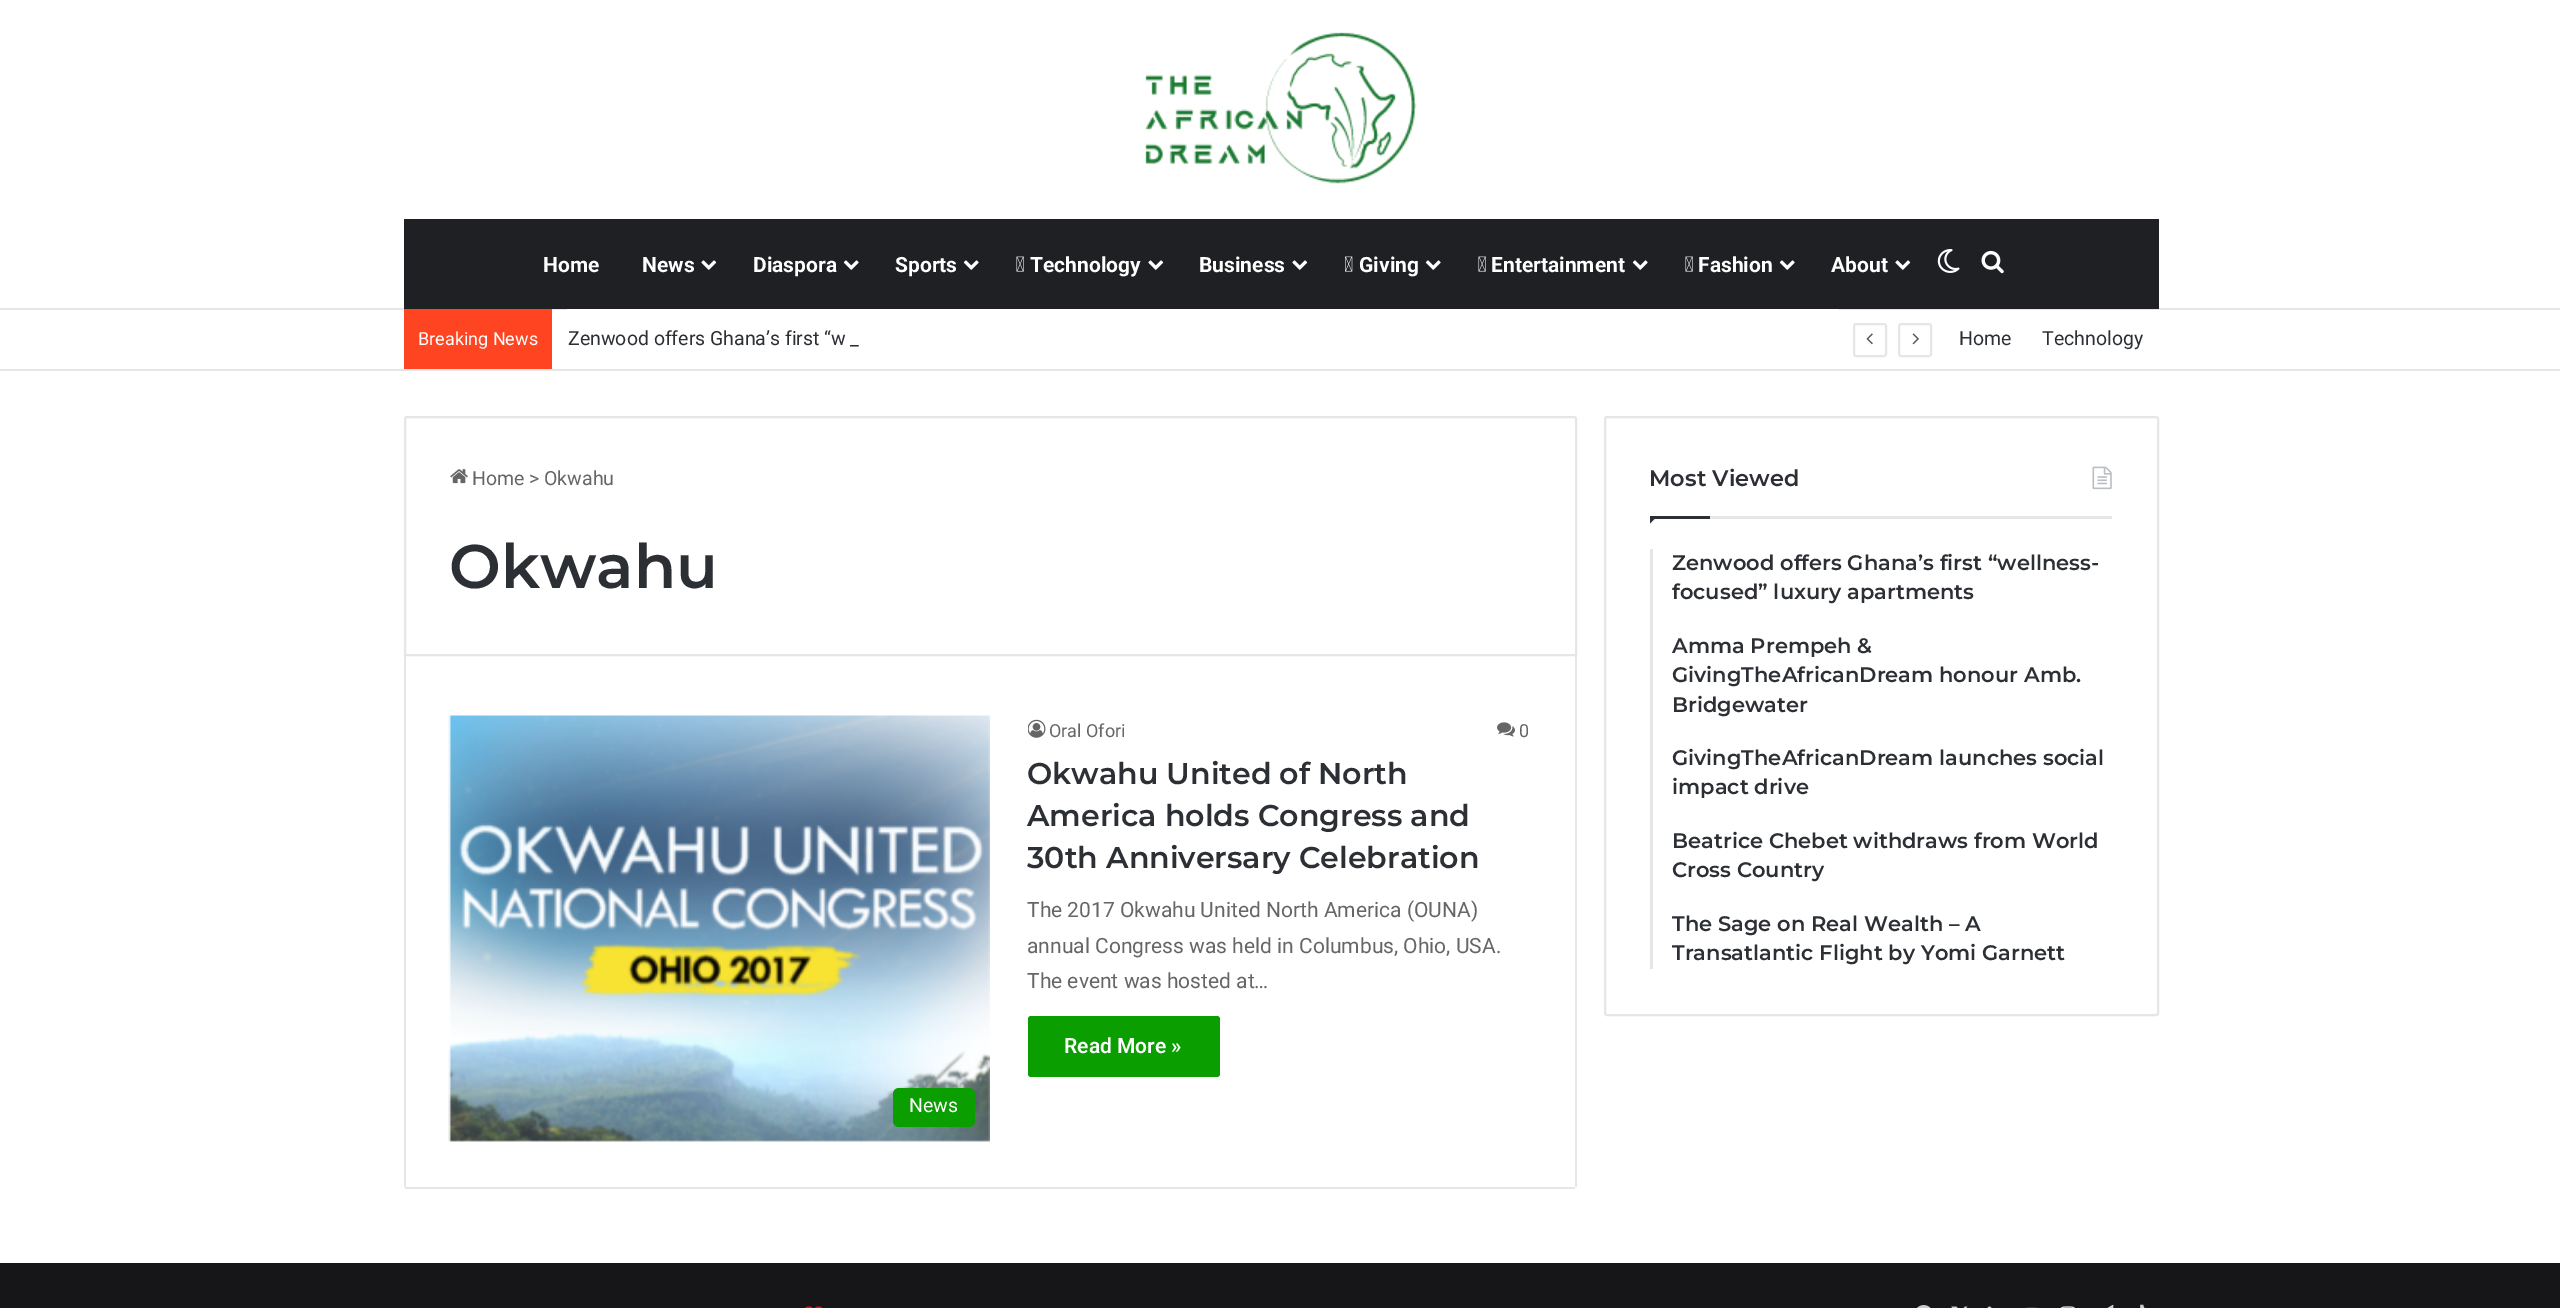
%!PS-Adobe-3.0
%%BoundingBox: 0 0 2560 1308
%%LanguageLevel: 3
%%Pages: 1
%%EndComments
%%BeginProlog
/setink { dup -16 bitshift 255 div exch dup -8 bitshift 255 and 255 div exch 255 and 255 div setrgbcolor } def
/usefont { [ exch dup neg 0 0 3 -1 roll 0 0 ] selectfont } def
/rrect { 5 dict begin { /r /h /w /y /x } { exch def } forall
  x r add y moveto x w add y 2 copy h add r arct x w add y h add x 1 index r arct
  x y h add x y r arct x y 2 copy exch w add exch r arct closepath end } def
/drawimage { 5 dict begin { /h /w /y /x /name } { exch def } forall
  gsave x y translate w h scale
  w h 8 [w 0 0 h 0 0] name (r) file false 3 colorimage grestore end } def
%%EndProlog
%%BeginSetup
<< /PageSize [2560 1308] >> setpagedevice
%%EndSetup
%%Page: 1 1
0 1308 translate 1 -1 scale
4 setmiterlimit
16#FFFFFF setink
0 0 2560 1308 rectfill
(img1.raw) 1145 32 272 152 drawimage
16#E6E6E6 setink
0 308 2560 2 rectfill
16#1F2024 setink
404 219 1755 90 rectfill
/Roboto-Bold 21 usefont
16#FFFFFF setink
543 272 moveto (Home) show
642 272 moveto (News) show
(img2.raw) 701 260 16 10 drawimage
753 272 moveto (Diaspora) show
(img3.raw) 843 260 16 10 drawimage
895 272 moveto (Sports) show
(img3.raw) 963 260 16 10 drawimage
(img4.raw) 1016 256 8 16 drawimage
1030 272 moveto (Technology) show
(img2.raw) 1148 260 16 10 drawimage
1199 272 moveto (Business) show
(img2.raw) 1292 260 16 10 drawimage
(img5.raw) 1345 256 8 16 drawimage
1359 272 moveto (Giving) show
(img3.raw) 1425 260 16 10 drawimage
(img4.raw) 1478 256 8 16 drawimage
1491 272 moveto (Entertainment) show
(img3.raw) 1632 260 16 10 drawimage
(img4.raw) 1685 256 8 16 drawimage
1698 272 moveto (Fashion) show
(img3.raw) 1779 260 16 10 drawimage
1831 272 moveto (About) show
(img2.raw) 1895 260 16 10 drawimage
(img6.raw) 1937 249 23 24 drawimage
(img7.raw) 1981 250 23 24 drawimage
16#E6E6E6 setink
0 369 2560 2 rectfill
16#FF4422 setink
404 309 148 60 rectfill
/Roboto-Regular 18 usefont
16#FFFFFF setink
418 345 moveto (Breaking News) show
567 309 1272 1 rectfill
/Roboto-Regular 19.5 usefont
16#2C2F34 setink
568 345 moveto (Zenwood offers Ghana’s first “w) show
850 345 moveto (_) show
16#E6E6E6 setink
2 setlinewidth
1854 324 32 32 2 rrect stroke
(img8.raw) 1866 333 7 12 drawimage
1899 324 32 32 2 rrect stroke
(img9.raw) 1912 333 7 12 drawimage
16#2C2F34 setink
1959 345 moveto (Home) show
2042 345 moveto (Technology) show
16#E6E6E6 setink
407 417 moveto 1574 417 lineto 1575 417 1576 418 1576 419 curveto 1576 655 lineto 405 655 lineto 405 419 lineto 405 418 406 417 407 417 curveto closepath stroke
(img10.raw) 450 469 18 15 drawimage
16#666666 setink
[
    [(Home) 472 485]
    [(>) 529 485]
    [(Okwahu) 544 485]
] { aload pop moveto show } forall
/Montserrat-SemiBold 61.5 usefont
16#2C2F34 setink
449 588 moveto (Okwahu) show
[
    [1575 656 2 531 16#E6E6E6]
    [405 1187 1170 2 16#E6E6E6]
    [404 656 2 531 16#E6E6E6]
] { aload pop setink rectfill } forall
(img11.raw) 1028 719 18 19 drawimage
/Roboto-Regular 18 usefont
16#666666 setink
1049 737 moveto (Oral Ofori) show
(img12.raw) 1497 722 18 15 drawimage
1519 737 moveto (0) show
/Montserrat-SemiBold 30 usefont
16#2C2F34 setink
[
    [(Okwahu United of North) 1027 784]
    [(America holds Congress and) 1027 826]
    [(30th Anniversary Celebration) 1027 868]
] { aload pop moveto show } forall
/Roboto-Regular 21 usefont
16#666666 setink
[
    [(The 2017 Okwahu United North America \(OUNA\)) 1027 917]
    [(annual Congress was held in Columbus, Ohio, USA.) 1027 953]
    [(The event was hosted at…) 1027 988]
] { aload pop moveto show } forall
16#0A9E01 setink
1028 1016 192 61 3 rrect fill
/Roboto-SemiBold 21 usefont
16#FFFFFF setink
1064 1053 moveto (Read More ») show
(img13.raw) 448 715 542 427 drawimage
16#0A9E01 setink
893 1088 82 39 6 rrect fill
/Roboto-Regular 19.5 usefont
16#FFFFFF setink
909 1112 moveto (News) show
16#E6E6E6 setink
1605 417 553 598 2 rrect stroke
1710 516 402 3 rectfill
/Montserrat-SemiBold 22.5 usefont
16#2C2F34 setink
1649 486 moveto (Most Viewed) show
(img14.raw) 2092 466 20 24 drawimage
1650 516 moveto 1657.5 516 lineto 1650 523.5 lineto closepath fill
1650 516 60 3 rectfill
16#E6E6E6 setink
1650 549 3 420 rectfill
/Montserrat-SemiBold 21 usefont
16#2C2F34 setink
[
    [(Zenwood offers Ghana’s first “wellness-) 1672 570]
    [(focused” luxury apartments) 1672 599]
    [(Amma Prempeh &) 1672 653]
    [(GivingTheAfricanDream honour Amb.) 1672 682]
    [(Bridgewater) 1672 712]
    [(GivingTheAfricanDream launches social) 1672 765]
    [(impact drive) 1672 794]
    [(Beatrice Chebet withdraws from World) 1672 848]
    [(Cross Country) 1672 877]
    [(The Sage on Real Wealth – A) 1672 931]
    [(Transatlantic Flight by Yomi Garnett) 1672 960]
] { aload pop moveto show } forall
16#161619 setink
0 1263 2560 45 rectfill
(img15.raw) 805 1306 18 2 drawimage
(img16.raw) 1917 1305 14 3 drawimage
(img17.raw) 1951 1306 17 2 drawimage
(img18.raw) 1987 1306 5 2 drawimage
(img19.raw) 2025 1307 14 1 drawimage
(img20.raw) 2060 1306 15 2 drawimage
(img21.raw) 2107 1304 7 4 drawimage
(img22.raw) 2140 1304 5 4 drawimage
showpage
%%EOF
